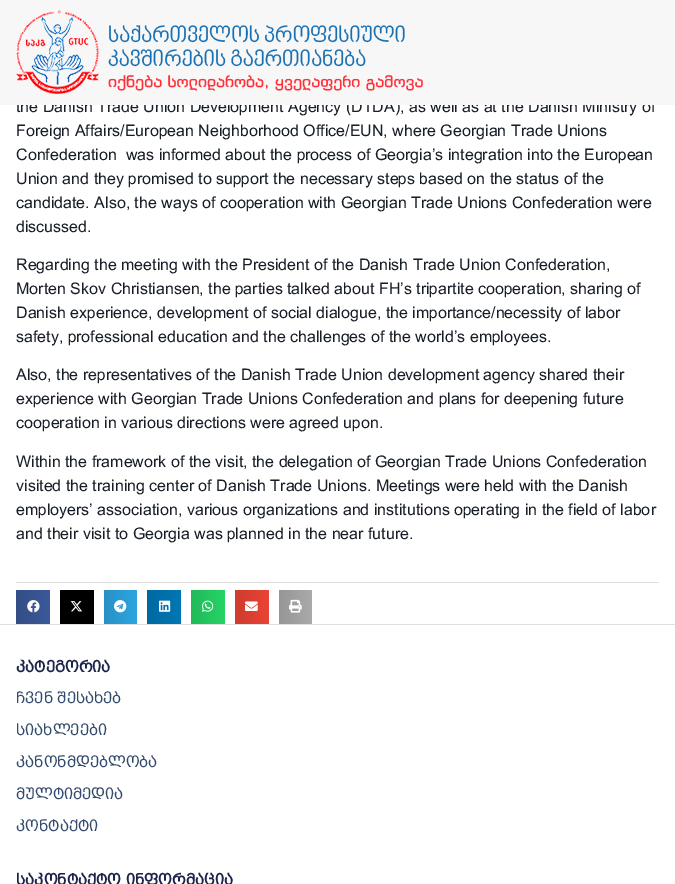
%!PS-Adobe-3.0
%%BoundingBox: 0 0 675 884
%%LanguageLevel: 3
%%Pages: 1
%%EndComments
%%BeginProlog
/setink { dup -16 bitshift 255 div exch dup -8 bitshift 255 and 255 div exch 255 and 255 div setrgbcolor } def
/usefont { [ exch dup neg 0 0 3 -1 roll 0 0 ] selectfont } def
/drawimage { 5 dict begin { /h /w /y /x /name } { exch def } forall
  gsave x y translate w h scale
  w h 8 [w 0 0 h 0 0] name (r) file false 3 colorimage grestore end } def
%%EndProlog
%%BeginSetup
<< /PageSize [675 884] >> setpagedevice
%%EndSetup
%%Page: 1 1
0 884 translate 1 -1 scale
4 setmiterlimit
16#FFFFFF setink
0 0 675 884 rectfill
/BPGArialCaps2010-Regular 16 usefont
16#181E27 setink
16 112 moveto (the Danish Trade Union Development Agency \(DTDA\), as well as at the Danish Ministry of) show
16#F7F7F7 setink
0 0 675 105 rectfill
(img1.raw) 16 10 407 84 drawimage
16#181E27 setink
[
    [(Foreign Affairs/European Neighborhood Office/EUN, where Georgian Trade Unions) 16 136]
    [(Confederation  was informed about the process of Georgia’s integration into the European) 16 160]
    [(Union and they promised to support the necessary steps based on the status of the) 16 184]
    [(candidate. Also, the ways of cooperation with Georgian Trade Unions Confederation were) 16 208]
    [(discussed.) 16 232]
    [(Regarding the meeting with the President of the Danish Trade Union Confederation,) 16 270]
    [(Morten Skov Christiansen, the parties talked about FH’s tripartite cooperation, sharing of) 16 294]
    [(Danish experience, development of social dialogue, the importance/necessity of labor) 16 318]
    [(safety, professional education and the challenges of the world’s employees.) 16 342]
    [(Also, the representatives of the Danish Trade Union development agency shared their) 16 380]
    [(experience with Georgian Trade Unions Confederation and plans for deepening future) 16 404]
    [(cooperation in various directions were agreed upon.) 16 428]
    [(Within the framework of the visit, the delegation of Georgian Trade Unions Confederation) 16 467]
    [(visited the training center of Danish Trade Unions. Meetings were held with the Danish) 16 491]
    [(employers’ association, various organizations and institutions operating in the field of labor) 16 515]
    [(and their visit to Georgia was planned in the near future.) 16 539]
] { aload pop moveto show } forall
16#DFDFDF setink
16 582 643 1 rectfill
gsave 16 590 moveto 50 590 lineto 50 624 lineto 16 624 lineto closepath clip newpath
<< /ShadingType 2 /ColorSpace /DeviceRGB /Coords [16 607 50 607] /Extend [true true] /Function << /FunctionType 2 /Domain [0 1] /C0 [0.204 0.306 0.525] /C1 [0.231 0.349 0.596] /N 1 >> >> shfill grestore
(img2.raw) 27 600 13 13 drawimage
16#000000 setink
60 590 34 34 rectfill
(img3.raw) 70 601 12 11 drawimage
gsave 104 590 moveto 137 590 lineto 137 624 lineto 104 624 lineto closepath clip newpath
<< /ShadingType 2 /ColorSpace /DeviceRGB /Coords [104 607 137 607] /Extend [true true] /Function << /FunctionType 2 /Domain [0 1] /C0 [0.153 0.569 0.773] /C1 [0.173 0.647 0.878] /N 1 >> >> shfill grestore
(img4.raw) 114 600 13 13 drawimage
gsave 147 590 moveto 181 590 lineto 181 624 lineto 147 624 lineto closepath clip newpath
<< /ShadingType 2 /ColorSpace /DeviceRGB /Coords [147 607 181 607] /Extend [true true] /Function << /FunctionType 2 /Domain [0 1] /C0 [0 0.412 0.624] /C1 [0 0.467 0.71] /N 1 >> >> shfill grestore
(img5.raw) 159 600 12 12 drawimage
gsave 191 590 moveto 225 590 lineto 225 624 lineto 191 624 lineto closepath clip newpath
<< /ShadingType 2 /ColorSpace /DeviceRGB /Coords [191 607 225 607] /Extend [true true] /Function << /FunctionType 2 /Domain [0 1] /C0 [0.129 0.729 0.353] /C1 [0.145 0.827 0.4] /N 1 >> >> shfill grestore
(img6.raw) 202 600 12 12 drawimage
gsave 235 590 moveto 269 590 lineto 269 624 lineto 235 624 lineto closepath clip newpath
<< /ShadingType 2 /ColorSpace /DeviceRGB /Coords [235 607 269 607] /Extend [true true] /Function << /FunctionType 2 /Domain [0 1] /C0 [0.808 0.231 0.184] /C1 [0.918 0.263 0.208] /N 1 >> >> shfill grestore
(img7.raw) 245 601 13 10 drawimage
gsave 279 590 moveto 312 590 lineto 312 624 lineto 279 624 lineto closepath clip newpath
<< /ShadingType 2 /ColorSpace /DeviceRGB /Coords [279 607 312 607] /Extend [true true] /Function << /FunctionType 2 /Domain [0 1] /C0 [0.588 0.588 0.588] /C1 [0.667 0.667 0.667] /N 1 >> >> shfill grestore
(img8.raw) 289 599 13 14 drawimage
16#DFDFDF setink
0 624 675 1 rectfill
/BPGArialCaps2010-Bold 16 usefont
16#1C244B setink
16 672 moveto (კატეგორია) show
/BPGArialCaps2010-Regular 16 usefont
16#324A6D setink
[
    [(ჩვენ შესახებ) 16 703]
    [(სიახლეები) 16 735]
    [(კანონმდებლობა) 16 767]
    [(მულტიმედია) 16 799]
    [(კონტაქტი) 16 831]
] { aload pop moveto show } forall
/BPGArialCaps2010-Bold 16 usefont
16#1C244B setink
16 885 moveto (საკონტაქტო ინფორმაცია) show
showpage
%%EOF
